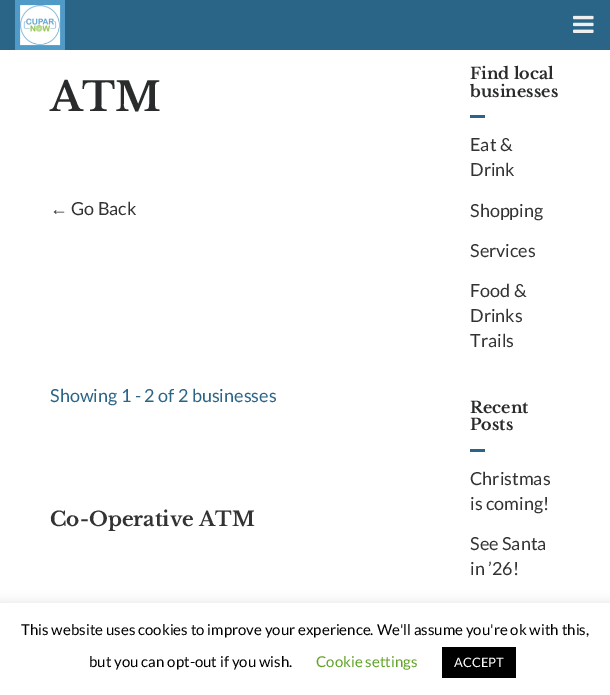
%!PS-Adobe-3.0
%%BoundingBox: 0 0 610 695
%%LanguageLevel: 3
%%Pages: 1
%%EndComments
%%BeginProlog
/setink { dup -16 bitshift 255 div exch dup -8 bitshift 255 and 255 div exch 255 and 255 div setrgbcolor } def
/usefont { [ exch dup neg 0 0 3 -1 roll 0 0 ] selectfont } def
/setalpha { dup .setfillconstantalpha .setstrokeconstantalpha } def
/rrect { 5 dict begin { /r /h /w /y /x } { exch def } forall
  x r add y moveto x w add y 2 copy h add r arct x w add y h add x 1 index r arct
  x y h add x y r arct x y 2 copy exch w add exch r arct closepath end } def
/softshadow { 12 dict begin { /a /b /q /h /w /y /x } { exch def } forall gsave /was 0 def
  9 -2 -9 { dup b mul 4 div /e exch def 1 sub .425 mul 2.718 exch exp 1 add a .99 .min exch div /now exch def
    1 1 now sub 1 was sub div sub setalpha /was now def
    w h .min e 2 mul add 0 gt { x e sub y e sub w e 2 mul add h e 2 mul add
      q e add b .6 mul add w h .min 2 div e add .min 0 .max rrect fill } if } for grestore end } def
/drawimage { 5 dict begin { /h /w /y /x /name } { exch def } forall
  gsave x y translate w h scale
  w h 8 [w 0 0 h 0 0] name (r) file false 3 colorimage grestore end } def
%%EndProlog
%%BeginSetup
<< /PageSize [610 695] /PageUsesTransparency true >> setpagedevice
%%EndSetup
%%Page: 1 1
0 .pushpdf14devicefilter
0 695 translate 1 -1 scale
4 setmiterlimit
16#FFFFFF setink
0 0 610 695 rectfill
16#2A6487 setink
0 0 610 50 rectfill
16#509AC8 setink
15 0 50 50 rectfill
(img1.raw) 20 5 41 41 drawimage
(img2.raw) 573 15 21 18 drawimage
/LibreBaskerville-Bold 40 usefont
16#292B2C setink
50 111 moveto (ATM) show
/LiberationSans-Regular 18 usefont
16#333333 setink
50 215 moveto (←) show
/Lato-Regular 18 usefont
71 215 moveto (Go Back) show
16#2A6487 setink
50 402 moveto (Showing 1 - 2 of 2 businesses) show
/LibreBaskerville-Bold 20 usefont
16#333333 setink
50 526 moveto (Co-Operative ATM) show
/LibreBaskerville-Bold 16 usefont
16#292B2C setink
470 79 moveto (Find local) show
470 97 moveto (businesses) show
16#2A6487 setink
470 115 15 3 rectfill
/Lato-Regular 18 usefont
16#333333 setink
[
    [(Eat &) 470 151]
    [(Drink) 470 176]
    [(Shopping) 470 217]
    [(Services) 470 257]
    [(Food &) 470 297]
    [(Drinks) 470 322]
    [(Trails) 470 347]
] { aload pop moveto show } forall
/LibreBaskerville-Bold 16 usefont
16#292B2C setink
470 413 moveto (Recent) show
470 430 moveto (Posts) show
16#2A6487 setink
470 449 15 3 rectfill
/Lato-Regular 18 usefont
16#333333 setink
[
    [(Christmas) 470 485]
    [(is coming!) 470 510]
    [(See Santa) 470 550]
    [(in ’26!) 470 575]
] { aload pop moveto show } forall
16#ACABAB setink
0 602 610 92 0 5 0.3 softshadow
16#FFFFFF setink
0 603 610 92 rectfill
/Lato-Regular 15 usefont
16#000000 setink
21 635 moveto (This website uses cookies to improve your experience. We'll assume you're ok with this,) show
89 667 moveto (but you can opt-out if you wish.) show
16#62A329 setink
316 667 moveto (Cookie settings) show
16#000000 setink
442 647 74 31 rectfill
/Lato-Regular 13 usefont
16#FFFFFF setink
454 667 moveto (ACCEPT) show
.poppdf14devicefilter showpage
%%EOF
